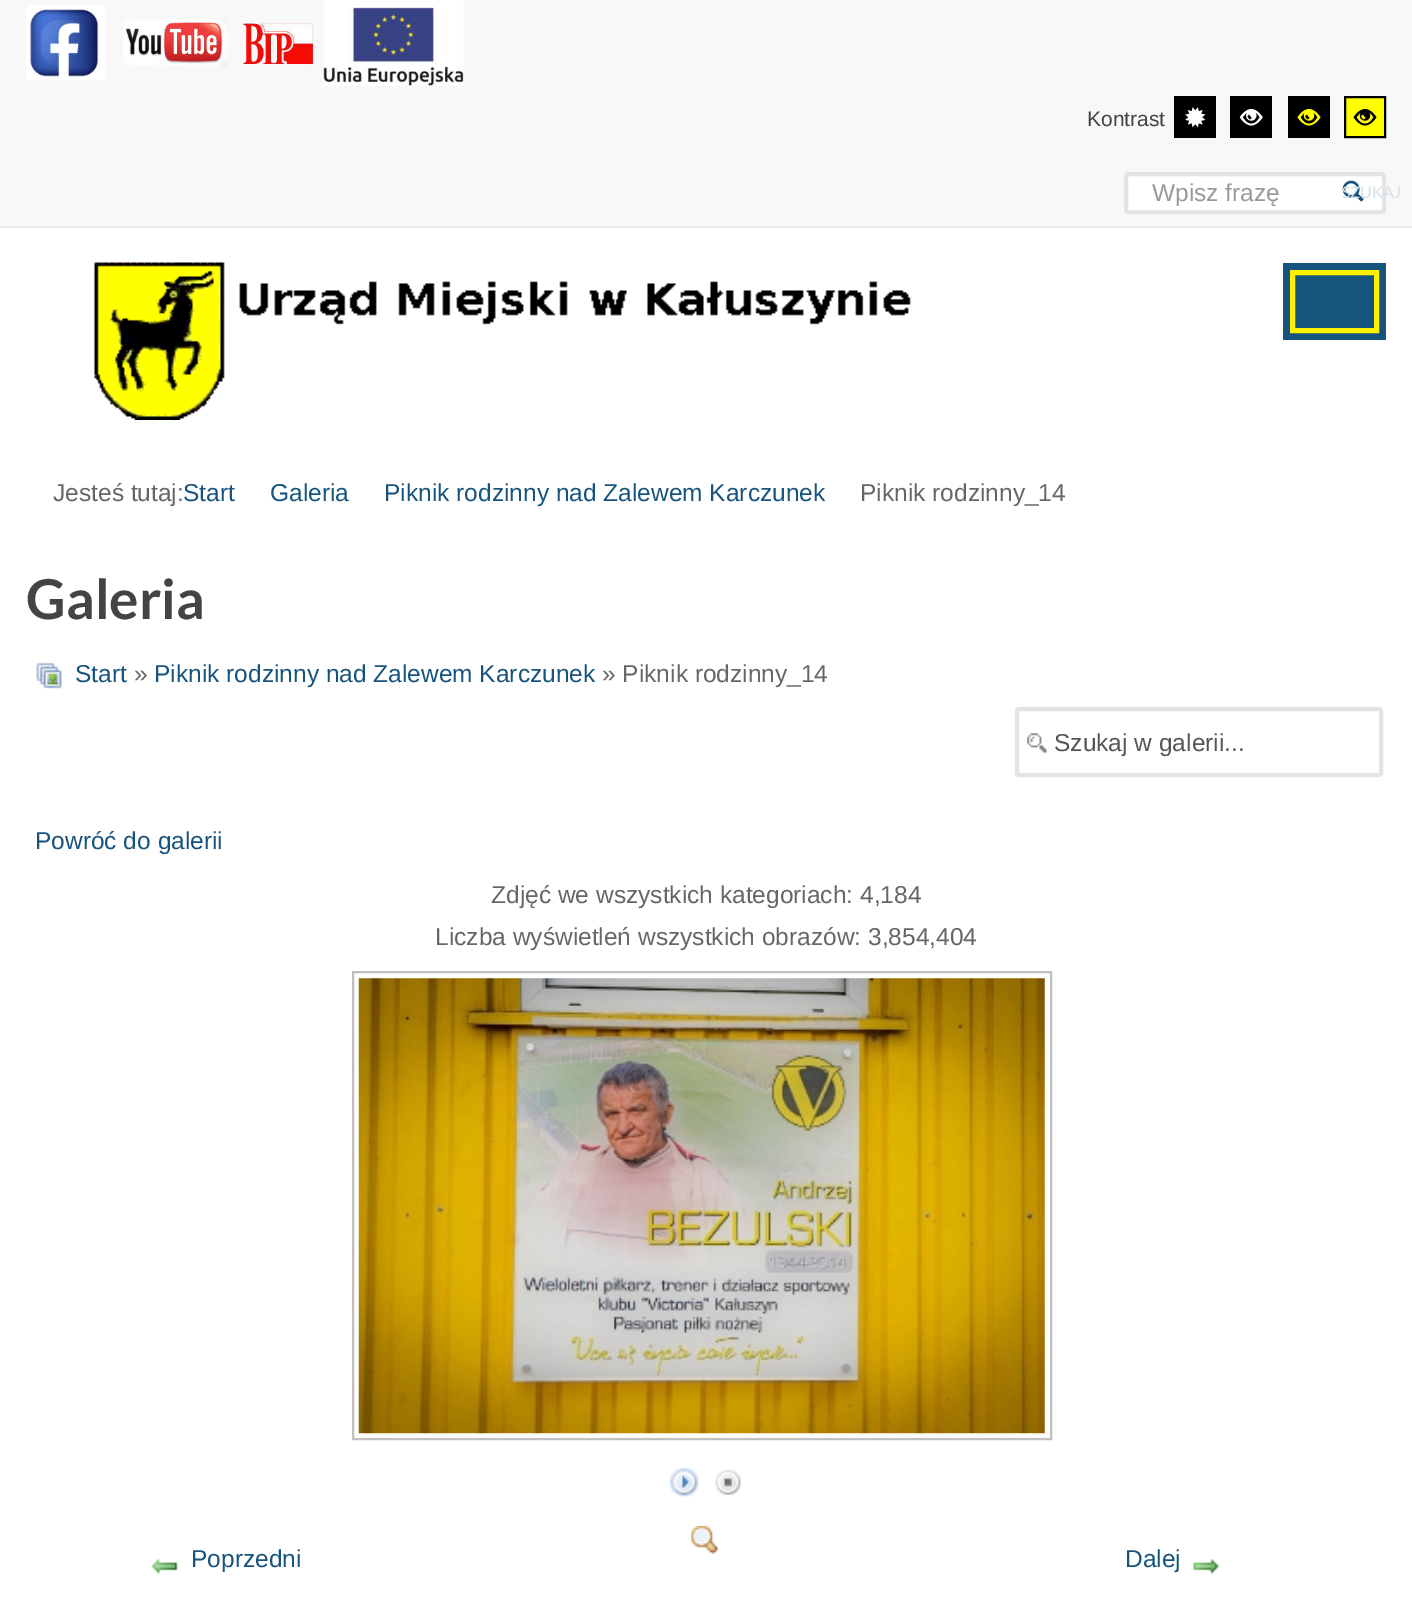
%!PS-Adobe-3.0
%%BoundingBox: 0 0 1412 1601
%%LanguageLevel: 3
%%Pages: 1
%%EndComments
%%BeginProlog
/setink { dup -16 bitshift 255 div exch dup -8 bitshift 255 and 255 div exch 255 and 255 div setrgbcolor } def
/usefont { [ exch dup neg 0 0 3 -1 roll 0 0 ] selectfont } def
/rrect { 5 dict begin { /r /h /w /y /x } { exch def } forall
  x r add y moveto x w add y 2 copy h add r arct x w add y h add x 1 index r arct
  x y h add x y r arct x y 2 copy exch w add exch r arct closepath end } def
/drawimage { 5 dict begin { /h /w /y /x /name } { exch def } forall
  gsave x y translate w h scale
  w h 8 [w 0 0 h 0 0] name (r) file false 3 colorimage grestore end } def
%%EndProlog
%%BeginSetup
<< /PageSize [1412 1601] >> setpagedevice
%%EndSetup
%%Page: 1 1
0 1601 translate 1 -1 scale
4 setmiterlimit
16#FFFFFF setink
0 0 1412 1601 rectfill
16#F8F8F8 setink
0 0 1412 226 rectfill
16#EBEAEA setink
0 226 1412 2 rectfill
(img1.raw) 26 5 79 75 drawimage
(img2.raw) 123 19 105 48 drawimage
(img3.raw) 243 23 71 42 drawimage
(img4.raw) 323 0 141 86 drawimage
/LiberationSans-Regular 21 usefont
16#444444 setink
1087 126 moveto (Kontrast) show
16#000000 setink
1174 96 42 42 rectfill
(img5.raw) 1185 107 21 21 drawimage
1230 96 42 42 rectfill
(img6.raw) 1239 108 24 18 drawimage
1288 96 42 42 rectfill
(img7.raw) 1297 108 24 18 drawimage
16#FFFF00 setink
1345 97 moveto 1385 97 lineto 1385 137 lineto 1345 137 lineto closepath gsave fill grestore
16#000000 setink
2 setlinewidth
stroke
(img8.raw) 1353 108 24 18 drawimage
16#FFFFFF setink
1126 174 258 38 2 rrect gsave fill grestore
16#E4E4E4 setink
4 setlinewidth
stroke
/LiberationSans-Regular 24.5 usefont
16#999999 setink
1152 201 moveto (Wpisz frazę) show
(img9.raw) 1342 180 22 22 drawimage
/Lato-Regular 16 usefont
16#D5E0E7 setink
1342 198 moveto (SZUKAJ) show
(img10.raw) 94 262 817 158 drawimage
16#16547D setink
1283 263 103 77 rectfill
16#FFF100 setink
5 setlinewidth
1292.5 272.5 84 58 rectstroke
/LiberationSans-Regular 24.5 usefont
16#666666 setink
53 501 moveto (Jesteś tutaj:) show
16#16547D setink
[
    [(Start) 183 501]
    [(Galeria) 270 501]
    [(Piknik rodzinny nad Zalewem Karczunek) 384 501]
] { aload pop moveto show } forall
16#666666 setink
860 501 moveto (Piknik rodzinny_14) show
/Lato-Bold 55 usefont
16#444444 setink
26 619 moveto (Galeria) show
(img11.raw) 36 662 26 27 drawimage
/LiberationSans-Regular 24.5 usefont
16#16547D setink
75 682 moveto (Start) show
16#666666 setink
134 682 moveto (») show
16#16547D setink
154 682 moveto (Piknik rodzinny nad Zalewem Karczunek) show
16#666666 setink
602 682 moveto (» Piknik rodzinny_14) show
(img12.raw) 1027 733 20 20 drawimage
16#E4E4E4 setink
4 setlinewidth
1017 709 364 66 2 rrect stroke
16#555555 setink
1054 751 moveto (Szukaj w galerii...) show
16#16547D setink
35 849 moveto (Powróć do galerii) show
16#666666 setink
491 903 moveto (Zdjęć we wszystkich kategoriach: 4,184) show
435 945 moveto (Liczba wyświetleń wszystkich obrazów: 3,854,404) show
16#C0C0C0 setink
2 setlinewidth
353 972 698 467 rectstroke
(img13.raw) 358 978 687 456 drawimage
(img14.raw) 670 1468 29 29 drawimage
(img15.raw) 715 1469 26 26 drawimage
(img16.raw) 691 1526 28 28 drawimage
(img17.raw) 151 1558 27 16 drawimage
16#16547D setink
191 1567 moveto (Poprzedni) show
1125 1567 moveto (Dalej) show
(img18.raw) 1193 1558 26 16 drawimage
showpage
%%EOF
